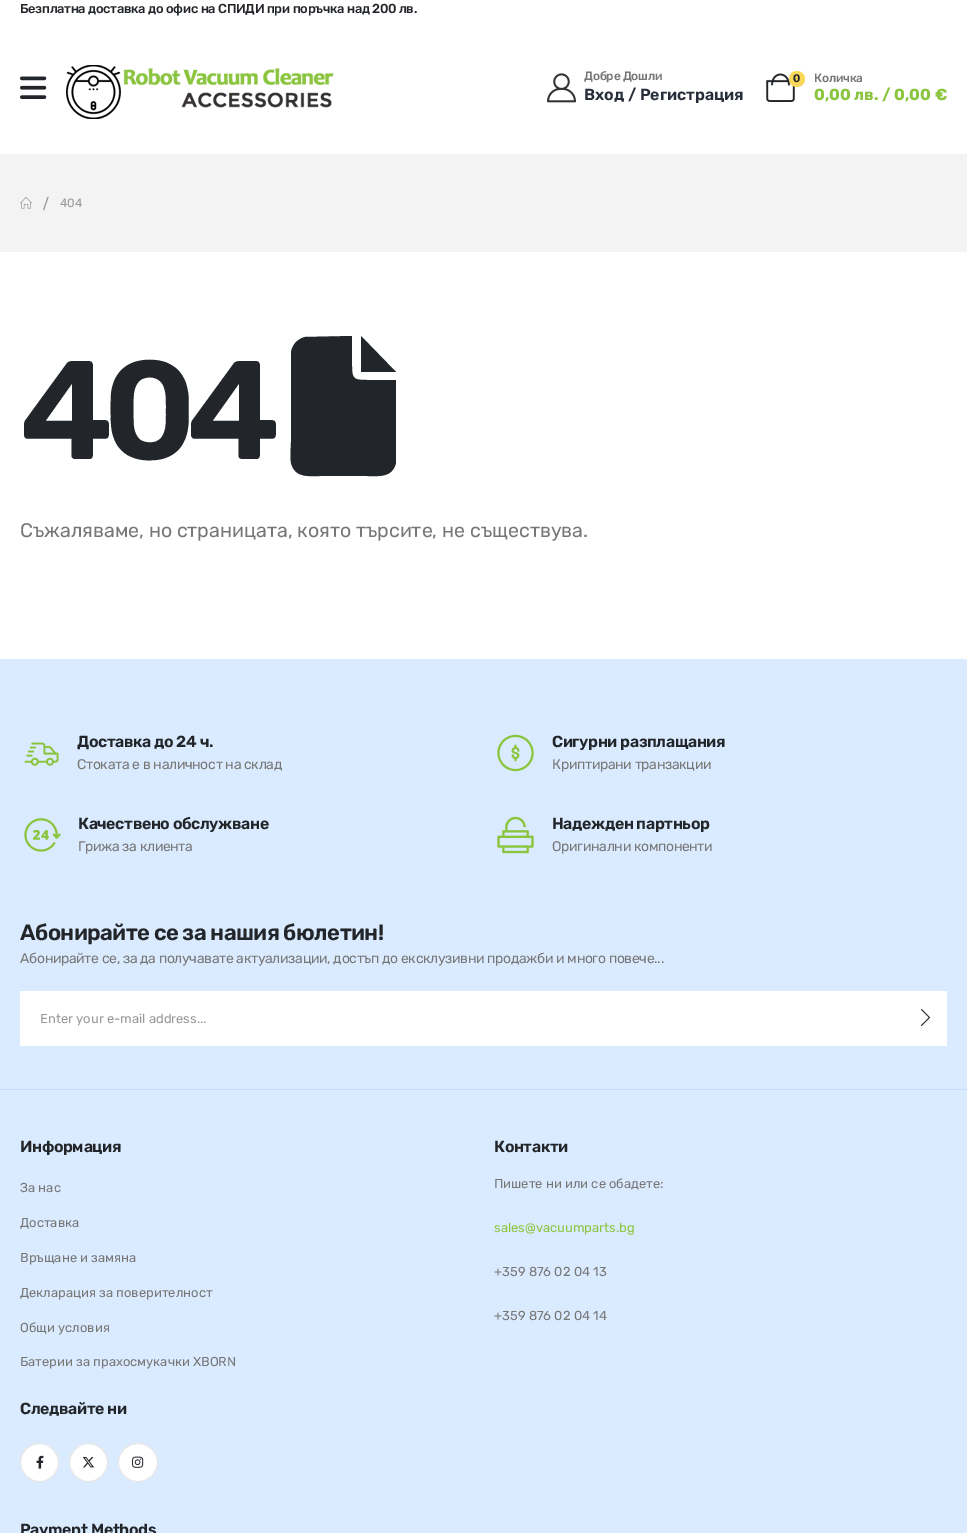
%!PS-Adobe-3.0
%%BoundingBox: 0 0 967 1533
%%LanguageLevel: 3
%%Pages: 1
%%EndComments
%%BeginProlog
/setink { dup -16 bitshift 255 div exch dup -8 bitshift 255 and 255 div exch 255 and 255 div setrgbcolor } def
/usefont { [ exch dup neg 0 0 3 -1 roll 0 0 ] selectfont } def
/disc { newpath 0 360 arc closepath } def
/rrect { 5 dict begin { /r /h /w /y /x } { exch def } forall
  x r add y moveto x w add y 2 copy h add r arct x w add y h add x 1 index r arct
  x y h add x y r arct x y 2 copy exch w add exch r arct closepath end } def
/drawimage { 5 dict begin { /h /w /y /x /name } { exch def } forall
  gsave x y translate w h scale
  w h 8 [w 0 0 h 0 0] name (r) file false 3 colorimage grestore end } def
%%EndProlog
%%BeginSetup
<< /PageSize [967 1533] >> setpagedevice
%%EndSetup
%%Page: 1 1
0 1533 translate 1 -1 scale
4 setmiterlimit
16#FFFFFF setink
0 0 967 1533 rectfill
/Rubik-Medium 13 usefont
16#222529 setink
20 13 moveto -0.33 0 (Безплатна доставка до офис на СПИДИ при поръчка над 200 лв.) ashow
(img1.raw) 20 76 27 23 drawimage
(img2.raw) 66 65 268 54 drawimage
(img3.raw) 547 73 29 30 drawimage
/Rubik-Medium 12 usefont
16#777777 setink
584 80 moveto -0.25 0 (Добре Дошли) ashow
/Rubik-SemiBold 16 usefont
16#282D3B setink
584 100 moveto (Вход / Регистрация) show
(img4.raw) 766 73 29 29 drawimage
16#F9D759 setink
797 79 8 disc fill
/Rubik-SemiBold 11 usefont
16#222529 setink
793 82 moveto (0) show
/Rubik-Medium 12 usefont
16#777777 setink
814 82 moveto -0.25 0 (Количка) ashow
/Rubik-Bold 16 usefont
16#8BC53F setink
814 100 moveto (0,00 лв. / 0,00 €) show
16#F3F3F3 setink
0 154 967 98 rectfill
(img5.raw) 20 197 12 12 drawimage
/LiberationSerif-Bold 20 usefont
16#999999 setink
43 210 moveto (/) show
/Rubik-Regular 12 usefont
60 207 moveto (404) show
/Rubik-SemiBold 140 usefont
16#222529 setink
20 459 moveto -10 0 (404) ashow
291 354 moveto 291 346 297 339 305 337 curveto 352 336 lineto 352 366 lineto 352 379 354 380 367 380 curveto 396 380 lineto 396 463 lineto 392 478 379 476 367 476 curveto 320 476 lineto 308 476 295 478 291 463 curveto 290 456 291 446 291 442 curveto closepath 396 372 moveto 361 372 lineto 361 336 lineto closepath fill
/Rubik-Regular 19.6 usefont
16#777777 setink
20 537 moveto (Съжаляваме, но страницата, която търсите, не съществува.) show
16#DBEBFF setink
0 659 967 430 rectfill
16#C5DDFD setink
0 1089 967 1 rectfill
(img6.raw) 24 742 35 24 drawimage
/Rubik-SemiBold 16 usefont
16#222529 setink
77 747 moveto -0.4 0 (Доставка до 24 ч.) ashow
/Rubik-Regular 14 usefont
16#777777 setink
77 769 moveto -0.35 0 (Стоката е в наличност на склад) ashow
(img7.raw) 497 734 37 38 drawimage
/Rubik-SemiBold 16 usefont
16#222529 setink
552 747 moveto -0.4 0 (Сигурни разплащания) ashow
/Rubik-Regular 14 usefont
16#777777 setink
552 769 moveto -0.35 0 (Криптирани транзакции) ashow
(img8.raw) 24 818 37 34 drawimage
/Rubik-SemiBold 16 usefont
16#222529 setink
78 829 moveto -0.4 0 (Качествено обслужване) ashow
/Rubik-Regular 14 usefont
16#777777 setink
78 851 moveto -0.35 0 (Грижа за клиента) ashow
(img9.raw) 497 816 37 38 drawimage
/Rubik-SemiBold 16 usefont
16#222529 setink
552 829 moveto -0.4 0 (Надежден партньор) ashow
/Rubik-Regular 14 usefont
16#777777 setink
552 851 moveto -0.35 0 (Оригинални компоненти) ashow
/Rubik-SemiBold 22 usefont
16#222529 setink
20 940 moveto -0.55 0 (Абонирайте се за нашия бюлетин!) ashow
/Rubik-Regular 14 usefont
16#777777 setink
20 963 moveto -0.35 0 (Абонирайте се, за да получавате актуализации, достъп до ексклузивни продажби и много повече...) ashow
16#FFFFFF setink
20 991 927 55 rectfill
/Rubik-Regular 13 usefont
16#999999 setink
40 1023 moveto (Enter your e-mail address...) show
(img10.raw) 921 1009 9 17 drawimage
16#DBEBFF setink
0 1090 967 443 rectfill
/Rubik-SemiBold 16 usefont
16#222529 setink
20 1152 moveto -0.4 0 (Информация) ashow
/Rubik-Regular 13 usefont
16#777777 setink
[
    [(За нас) 20 1192]
    [(Доставка) 20 1227]
    [(Връщане и замяна) 20 1262]
    [(Декларация за поверителност) 20 1297]
    [(Общи условия) 20 1332]
    [(Батерии за прахосмукачки XBORN) 20 1366]
] { aload pop moveto show } forall
/Rubik-SemiBold 16 usefont
16#222529 setink
494 1152 moveto -0.4 0 (Контакти) ashow
/Rubik-Regular 13 usefont
16#777777 setink
494 1188 moveto (Пишете ни или се обадете:) show
16#8BC53F setink
494 1232 moveto (sales@vacuumparts.bg) show
16#777777 setink
494 1276 moveto (+359 876 02 04 13) show
494 1320 moveto (+359 876 02 04 14) show
/Rubik-SemiBold 16 usefont
16#222529 setink
20 1414 moveto -0.4 0 (Следвайте ни) ashow
16#FFFFFF setink
39.5 1462.5 19 disc gsave fill grestore
16#E7E7E7 setink
stroke
(img11.raw) 36 1455 8 14 drawimage
16#FFFFFF setink
88.5 1462.5 19 disc gsave fill grestore
16#E7E7E7 setink
stroke
(img12.raw) 82 1457 12 11 drawimage
16#FFFFFF setink
118.5 1443.5 39 38 19 rrect gsave fill grestore
16#E7E7E7 setink
stroke
(img13.raw) 132 1456 12 12 drawimage
16#222529 setink
20 1535 moveto -0.4 0 (Payment Methods) ashow
showpage
%%EOF
